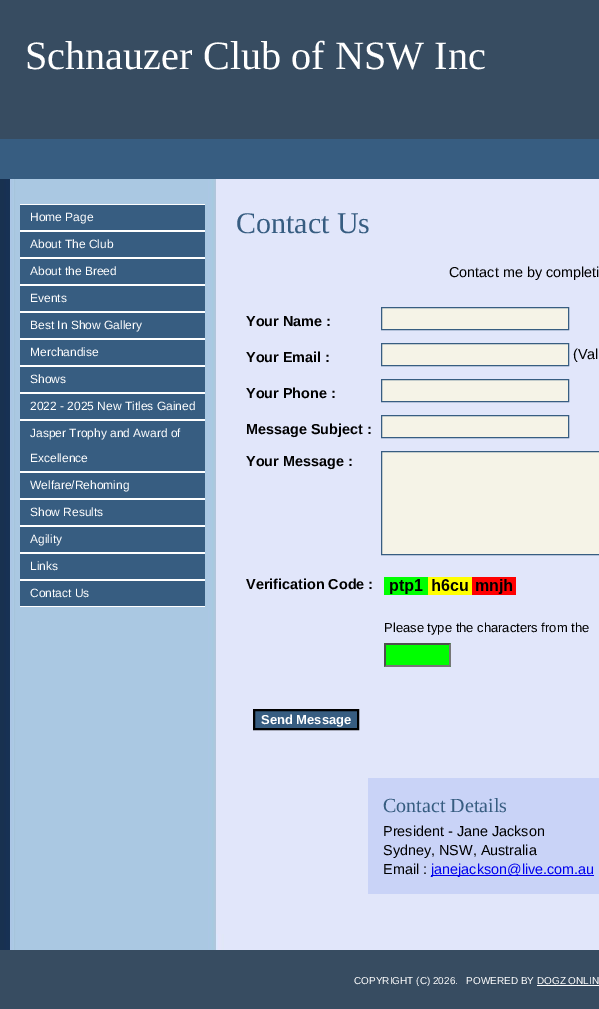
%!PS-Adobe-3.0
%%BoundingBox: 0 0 599 1009
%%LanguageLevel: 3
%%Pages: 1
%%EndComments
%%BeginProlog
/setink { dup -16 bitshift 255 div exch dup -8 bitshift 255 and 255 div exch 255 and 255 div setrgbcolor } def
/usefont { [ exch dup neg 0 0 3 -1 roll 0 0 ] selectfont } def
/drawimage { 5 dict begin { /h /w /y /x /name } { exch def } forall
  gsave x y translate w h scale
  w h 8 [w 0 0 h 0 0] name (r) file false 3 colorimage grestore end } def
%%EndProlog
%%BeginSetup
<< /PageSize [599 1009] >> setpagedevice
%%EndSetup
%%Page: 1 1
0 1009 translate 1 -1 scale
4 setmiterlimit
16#374C61 setink
0 0 599 1009 rectfill
/LiberationSerif-Regular 40.25 usefont
16#FFFFFF setink
25 69 moveto (Schnauzer Club of NSW Inc) show
16#375D81 setink
0 139 599 40 rectfill
(img1.raw) 0 179 599 771 drawimage
[
    [20 205 185 401 16#375D81]
    [20 204 185 1 16#FFFFFF]
    [20 230 185 2 16#FFFFFF]
] { aload pop setink rectfill } forall
/LiberationSans-Regular 12 usefont
30 221 moveto (Home Page) show
20 257 185 2 rectfill
30 248 moveto (About The Club) show
20 284 185 2 rectfill
30 275 moveto (About the Breed) show
20 311 185 2 rectfill
30 302 moveto (Events) show
20 338 185 2 rectfill
30 329 moveto (Best In Show Gallery) show
20 365 185 2 rectfill
30 356 moveto (Merchandise) show
20 392 185 2 rectfill
30 383 moveto (Shows) show
20 419 185 2 rectfill
30 410 moveto (2022 - 2025 New Titles Gained) show
20 471 185 2 rectfill
30 437 moveto (Jasper Trophy and Award of) show
30 462 moveto (Excellence) show
20 498 185 2 rectfill
30 489 moveto (Welfare/Rehoming) show
20 525 185 2 rectfill
30 516 moveto (Show Results) show
20 552 185 2 rectfill
30 543 moveto (Agility) show
20 579 185 2 rectfill
30 570 moveto (Links) show
20 606 185 1 rectfill
30 597 moveto (Contact Us) show
16#E1E6FA setink
216 179 8 755 rectfill
/LiberationSerif-Regular 30 usefont
16#375D81 setink
236 233 moveto (Contact Us) show
/LiberationSans-Regular 14.4 usefont
16#000000 setink
449 277 moveto (Contact me by completi) show
/LiberationSans-Bold 14.4 usefont
246 326 moveto (Your Name :) show
16#F5F3E7 setink
381.5 307.5 moveto 568.5 307.5 lineto 568.5 329.5 lineto 381.5 329.5 lineto closepath gsave fill grestore
16#375D81 setink
stroke
16#000000 setink
246 362 moveto (Your Email :) show
16#F5F3E7 setink
381.5 343.5 moveto 568.5 343.5 lineto 568.5 365.5 lineto 381.5 365.5 lineto closepath gsave fill grestore
16#375D81 setink
stroke
/LiberationSans-Regular 14.4 usefont
16#000000 setink
573 359 moveto (\(Val) show
/LiberationSans-Bold 14.4 usefont
246 398 moveto (Your Phone :) show
16#F5F3E7 setink
381.5 379.5 moveto 568.5 379.5 lineto 568.5 401.5 lineto 381.5 401.5 lineto closepath gsave fill grestore
16#375D81 setink
stroke
16#000000 setink
246 434 moveto (Message Subject :) show
16#F5F3E7 setink
381.5 415.5 moveto 568.5 415.5 lineto 568.5 437.5 lineto 381.5 437.5 lineto closepath gsave fill grestore
16#375D81 setink
stroke
16#000000 setink
246 466 moveto (Your Message :) show
16#F5F3E7 setink
381.5 451.5 moveto 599.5 451.5 lineto 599.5 554.5 lineto 381.5 554.5 lineto closepath gsave fill grestore
16#375D81 setink
stroke
16#000000 setink
246 589 moveto (Verification Code :) show
(img2.raw) 384 577 132 18 drawimage
/LiberationSans-Regular 13 usefont
384 632 moveto (Please type the characters from the) show
16#00FF00 setink
384 643 67 24 rectfill
16#4F4F4F setink
384 643 moveto 451 643 lineto 449 645 lineto 386 645 lineto closepath fill
16#767676 setink
451 643 moveto 451 667 lineto 449 665 lineto 449 645 lineto closepath fill
451 667 moveto 384 667 lineto 386 665 lineto 449 665 lineto closepath fill
16#4F4F4F setink
384 667 moveto 384 643 lineto 386 645 lineto 386 665 lineto closepath fill
16#375D81 setink
254 710 moveto 358 710 lineto 358 729 lineto 254 729 lineto closepath gsave fill grestore
16#000000 setink
2 setlinewidth
stroke
/LiberationSans-Bold 13 usefont
16#FFFFFF setink
261 724 moveto (Send Message) show
16#C9D3F7 setink
368 778 231 116 rectfill
/LiberationSerif-Regular 20 usefont
16#375D81 setink
383 812 moveto (Contact Details) show
/LiberationSans-Regular 14.4 usefont
16#000000 setink
[
    [(President - Jane Jackson) 383 836]
    [(Sydney, NSW, Australia) 383 855]
    [(Email :) 383 874]
] { aload pop moveto show } forall
16#0000EE setink
431 875 163 1 rectfill
431 874 moveto (janejackson@live.com.au) show
/LiberationSans-Regular 10 usefont
16#FFFFFF setink
354 984 moveto (COPYRIGHT \(C\) 2026.   POWERED BY DOGZ ONLIN) show
537 985 62 1 rectfill
showpage
%%EOF
